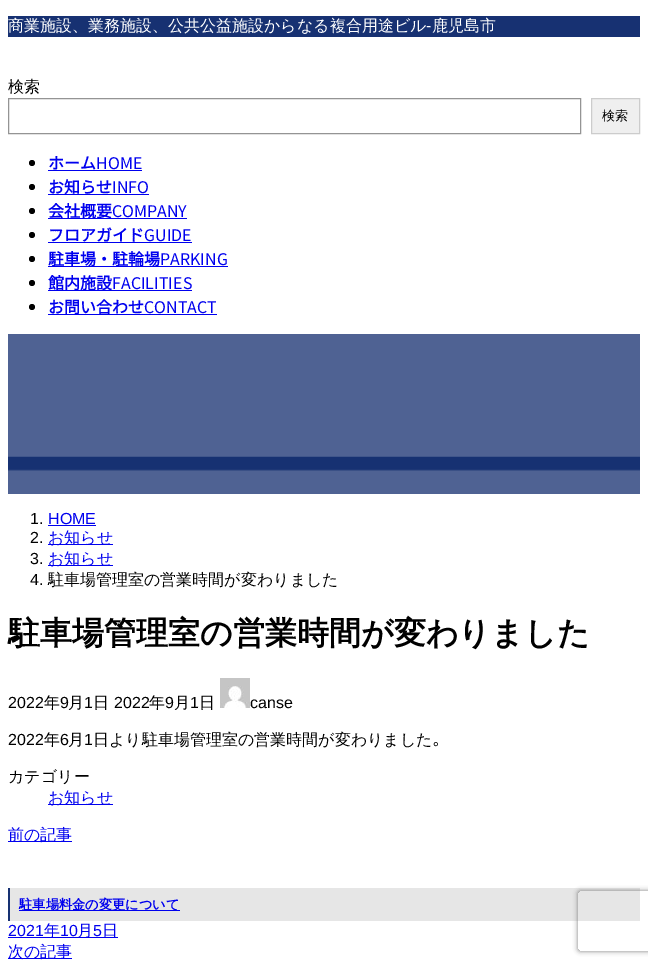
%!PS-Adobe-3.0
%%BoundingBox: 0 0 648 965
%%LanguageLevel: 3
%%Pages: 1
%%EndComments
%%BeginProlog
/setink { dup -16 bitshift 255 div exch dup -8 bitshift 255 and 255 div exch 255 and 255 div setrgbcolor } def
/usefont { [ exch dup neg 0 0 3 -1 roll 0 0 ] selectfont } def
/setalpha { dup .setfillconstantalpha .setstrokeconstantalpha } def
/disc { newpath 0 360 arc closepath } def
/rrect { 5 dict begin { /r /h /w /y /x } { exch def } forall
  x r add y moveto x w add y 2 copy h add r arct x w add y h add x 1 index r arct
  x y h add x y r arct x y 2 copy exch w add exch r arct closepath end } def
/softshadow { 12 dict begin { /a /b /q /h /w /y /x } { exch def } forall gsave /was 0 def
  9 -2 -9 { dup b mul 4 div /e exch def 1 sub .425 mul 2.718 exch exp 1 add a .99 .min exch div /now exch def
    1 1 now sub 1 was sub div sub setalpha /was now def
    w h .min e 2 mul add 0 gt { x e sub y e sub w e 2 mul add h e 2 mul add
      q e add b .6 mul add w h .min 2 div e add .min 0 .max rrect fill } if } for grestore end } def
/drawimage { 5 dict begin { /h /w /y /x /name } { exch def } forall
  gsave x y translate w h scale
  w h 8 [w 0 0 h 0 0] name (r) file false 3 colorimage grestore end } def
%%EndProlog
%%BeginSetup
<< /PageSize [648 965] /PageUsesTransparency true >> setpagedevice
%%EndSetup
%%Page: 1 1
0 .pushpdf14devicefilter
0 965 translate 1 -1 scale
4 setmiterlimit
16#FFFFFF setink
0 0 648 965 rectfill
16#173172 setink
8 16 632 21 rectfill
/WenQuanYiZenHei-Medium 16 usefont
16#FFFFFF setink
8 31 moveto (商業施設、業務施設、公共公益施設からなる複合用途ビル) show
/LiberationSans-Regular 16 usefont
426 31 moveto (-) show
/WenQuanYiZenHei-Medium 16 usefont
432 31 moveto (鹿児島市) show
16#000000 setink
8 92 moveto (検索) show
16#949494 setink
8.5 98.5 572 35 rectstroke
16#EFEFEF setink
591.5 98.5 moveto 639.5 98.5 lineto 639.5 133.5 lineto 591.5 133.5 lineto closepath gsave fill grestore
16#CCCCCC setink
stroke
/WenQuanYiZenHei-Medium 13 usefont
16#000000 setink
602 120 moveto (検索) show
32 163 3 disc fill
/NotoSansJP-Bold 16 usefont
16#0000EE setink
48 169 moveto (ホーム) show
/NotoSansJP-Thin 16 usefont
96 169 moveto (HOME) show
48 170 94 1 rectfill
16#000000 setink
32 187 3 disc fill
16#0000EE setink
48 194 101 1 rectfill
/NotoSansJP-Bold 16 usefont
48 193 moveto (お知らせ) show
/NotoSansJP-Thin 16 usefont
112 193 moveto (INFO) show
16#000000 setink
32 211 3 disc fill
16#0000EE setink
48 218 139 1 rectfill
/NotoSansJP-Bold 16 usefont
48 217 moveto (会社概要) show
/NotoSansJP-Thin 16 usefont
112 217 moveto (COMPANY) show
16#000000 setink
32 235 3 disc fill
/NotoSansJP-Bold 16 usefont
16#0000EE setink
48 241 moveto (フロアガイド) show
/NotoSansJP-Thin 16 usefont
144 241 moveto (GUIDE) show
48 242 144 1 rectfill
16#000000 setink
32 259 3 disc fill
16#0000EE setink
48 266 180 1 rectfill
/NotoSansJP-Bold 16 usefont
48 265 moveto (駐車場・駐輪場) show
/NotoSansJP-Thin 16 usefont
160 265 moveto (PARKING) show
16#000000 setink
32 283 3 disc fill
16#0000EE setink
48 290 144 1 rectfill
/NotoSansJP-Bold 16 usefont
48 289 moveto (館内施設) show
/NotoSansJP-Thin 16 usefont
112 289 moveto (FACILITIES) show
16#000000 setink
32 307 3 disc fill
16#0000EE setink
48 314 169 1 rectfill
/NotoSansJP-Bold 16 usefont
48 313 moveto (お問い合わせ) show
/NotoSansJP-Thin 16 usefont
144 313 moveto (CONTACT) show
(img1.raw) 8 334 632 160 drawimage
/LiberationSans-Regular 16 usefont
16#000000 setink
30 524 moveto (1.) show
16#0000EE setink
48 524 moveto (HOME) show
48 525 48 1 rectfill
16#000000 setink
30 543 moveto (2.) show
16#0000EE setink
48 544 65 1 rectfill
/WenQuanYiZenHei-Medium 16 usefont
48 543 moveto (お知らせ) show
/LiberationSans-Regular 16 usefont
16#000000 setink
30 564 moveto (3.) show
16#0000EE setink
48 565 65 1 rectfill
/WenQuanYiZenHei-Medium 16 usefont
48 564 moveto (お知らせ) show
/LiberationSans-Regular 16 usefont
16#000000 setink
30 585 moveto (4.) show
/WenQuanYiZenHei-Medium 16 usefont
48 585 moveto (駐車場管理室の営業時間が変わりました) show
/WenQuanYiZenHei-Bold 32 usefont
8 644 moveto (駐車場管理室の営業時間が変わりました) show
/LiberationSans-Regular 16 usefont
8 708 moveto (2022) show
/WenQuanYiZenHei-Medium 16 usefont
44 708 moveto (年) show
/LiberationSans-Regular 16 usefont
60 708 moveto (9) show
/WenQuanYiZenHei-Medium 16 usefont
68 708 moveto (月) show
/LiberationSans-Regular 16 usefont
84 708 moveto (1) show
/WenQuanYiZenHei-Medium 16 usefont
93 708 moveto (日) show
/LiberationSans-Regular 16 usefont
114 708 moveto (2022) show
/WenQuanYiZenHei-Medium 16 usefont
149 708 moveto (年) show
/LiberationSans-Regular 16 usefont
165 708 moveto (9) show
/WenQuanYiZenHei-Medium 16 usefont
174 708 moveto (月) show
/LiberationSans-Regular 16 usefont
190 708 moveto (1) show
/WenQuanYiZenHei-Medium 16 usefont
199 708 moveto (日) show
(img2.raw) 220 678 30 30 drawimage
/LiberationSans-Regular 16 usefont
250 708 moveto (canse) show
8 745 moveto (2022) show
/WenQuanYiZenHei-Medium 16 usefont
44 745 moveto (年) show
/LiberationSans-Regular 16 usefont
60 745 moveto (6) show
/WenQuanYiZenHei-Medium 16 usefont
68 745 moveto (月) show
/LiberationSans-Regular 16 usefont
84 745 moveto (1) show
/WenQuanYiZenHei-Medium 16 usefont
93 745 moveto (日より駐車場管理室の営業時間が変わりました) show
/IPAPGothic-Regular 16 usefont
433 745 moveto (｡) show
/WenQuanYiZenHei-Medium 16 usefont
8 782 moveto (カテゴリー) show
16#0000EE setink
48 804 65 1 rectfill
48 803 moveto (お知らせ) show
8 841 64 1 rectfill
8 840 moveto (前の記事) show
[
    [10 888 630 33 16#E6E6E6]
    [8 888 2 33 16#173172]
    [19 910 161 1 16#0000EE]
] { aload pop setink rectfill } forall
/WenQuanYiZenHei-Bold 13.25 usefont
19 909 moveto (駐車場料金の変更について) show
/LiberationSans-Regular 16 usefont
8 936 moveto (2021) show
8 937 110 1 rectfill
/WenQuanYiZenHei-Medium 16 usefont
44 936 moveto (年) show
/LiberationSans-Regular 16 usefont
60 936 moveto (10) show
/WenQuanYiZenHei-Medium 16 usefont
77 936 moveto (月) show
/LiberationSans-Regular 16 usefont
93 936 moveto (5) show
/WenQuanYiZenHei-Medium 16 usefont
102 936 moveto (日) show
8 958 64 1 rectfill
8 957 moveto (次の記事) show
gsave
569 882 moveto 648 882 lineto 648 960 lineto 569 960 lineto closepath 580 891 moveto 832 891 lineto 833 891 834 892 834 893 curveto 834 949 lineto 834 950 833 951 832 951 curveto 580 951 lineto 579 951 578 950 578 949 curveto 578 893 lineto 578 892 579 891 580 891 curveto closepath eoclip newpath
16#808080 setink
578 891 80 60 2 2.5 1 softshadow
grestore
.poppdf14devicefilter showpage
%%EOF
